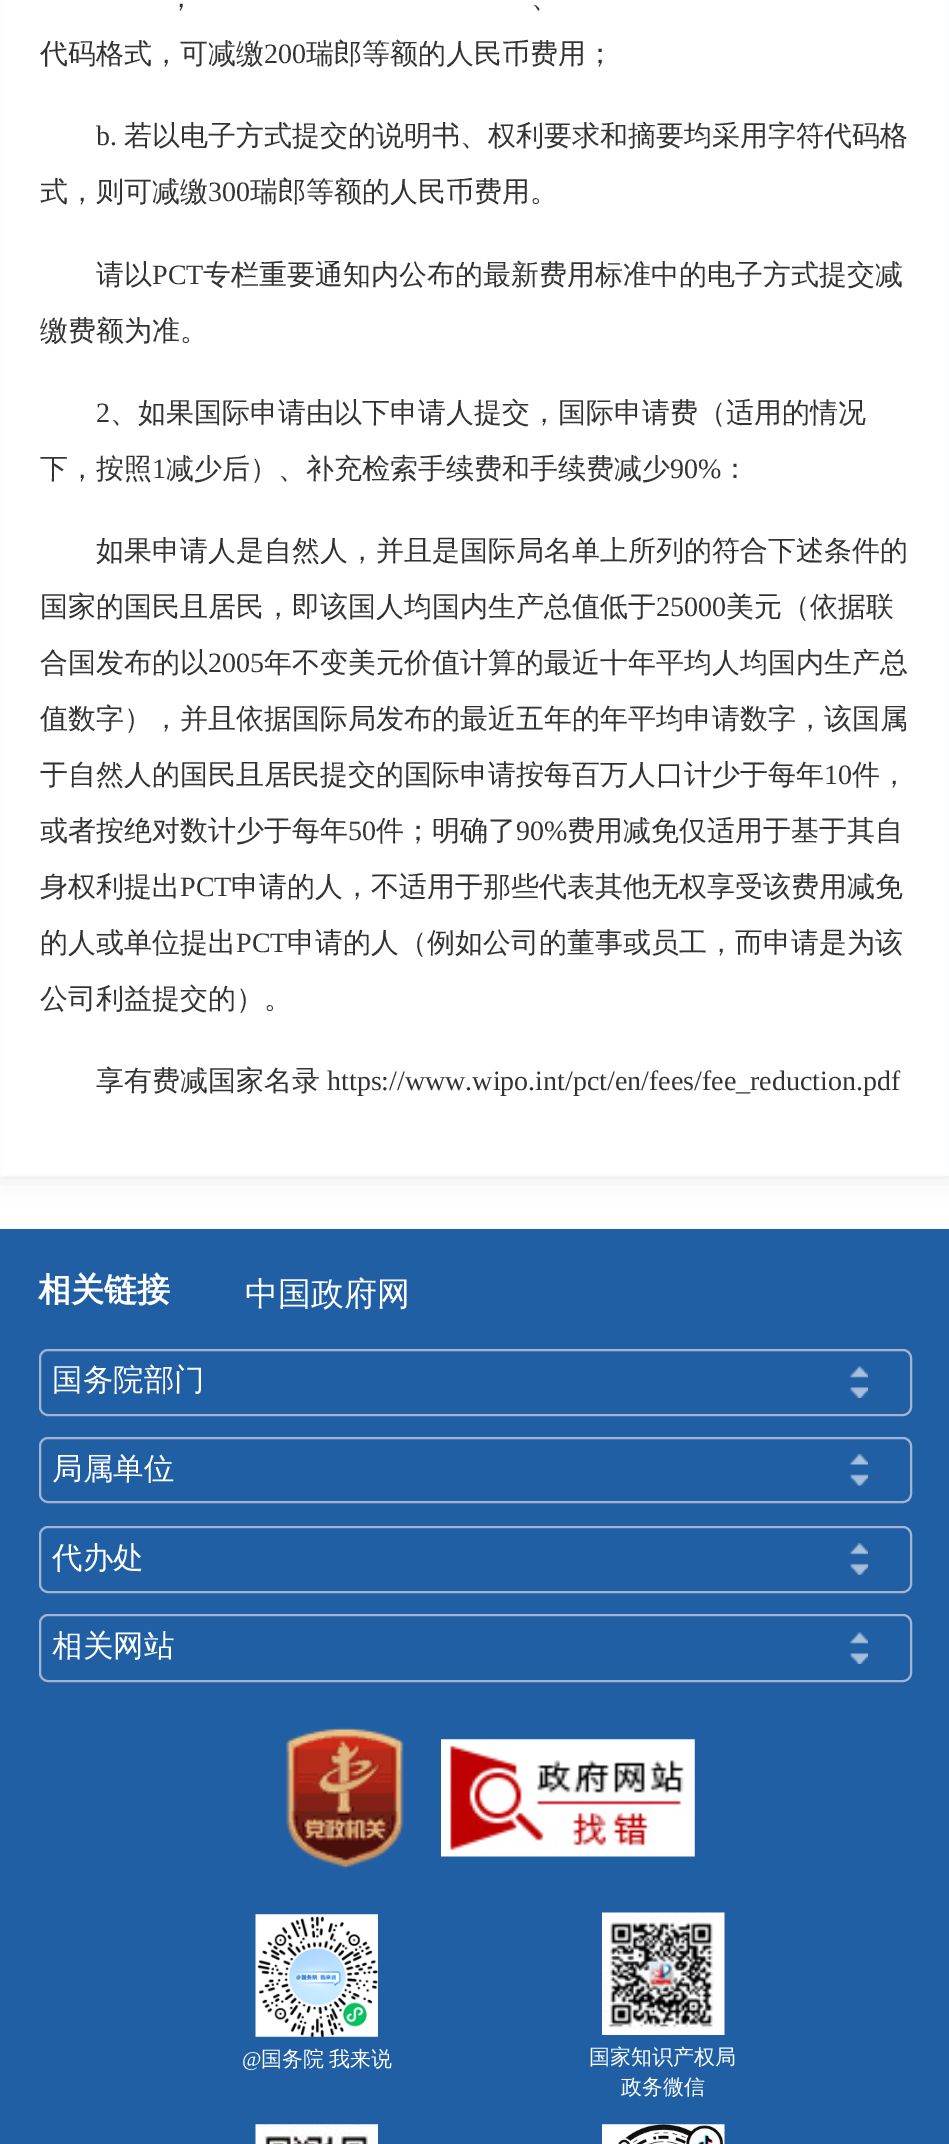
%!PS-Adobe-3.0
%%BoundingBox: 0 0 949 2144
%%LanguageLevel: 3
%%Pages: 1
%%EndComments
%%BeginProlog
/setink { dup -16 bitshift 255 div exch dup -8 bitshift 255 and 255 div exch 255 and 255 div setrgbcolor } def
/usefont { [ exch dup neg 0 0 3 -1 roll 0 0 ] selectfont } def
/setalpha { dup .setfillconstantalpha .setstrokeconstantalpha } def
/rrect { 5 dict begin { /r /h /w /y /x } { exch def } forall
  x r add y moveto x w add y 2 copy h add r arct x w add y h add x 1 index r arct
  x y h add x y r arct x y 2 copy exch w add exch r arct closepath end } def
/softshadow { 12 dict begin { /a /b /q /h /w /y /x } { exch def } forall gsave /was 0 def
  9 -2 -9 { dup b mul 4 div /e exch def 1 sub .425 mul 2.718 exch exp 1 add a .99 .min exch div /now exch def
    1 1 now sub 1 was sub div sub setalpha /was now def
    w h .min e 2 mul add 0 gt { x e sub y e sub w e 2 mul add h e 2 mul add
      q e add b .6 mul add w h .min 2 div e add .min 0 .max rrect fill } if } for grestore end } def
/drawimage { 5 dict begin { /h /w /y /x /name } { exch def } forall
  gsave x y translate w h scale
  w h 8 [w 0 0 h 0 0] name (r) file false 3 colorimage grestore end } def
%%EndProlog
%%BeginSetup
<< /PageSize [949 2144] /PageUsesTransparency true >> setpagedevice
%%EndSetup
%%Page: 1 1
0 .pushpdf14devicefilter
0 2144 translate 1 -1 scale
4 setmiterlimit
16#FFFFFF setink
0 0 949 2144 rectfill
gsave
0 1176 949 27 rectclip
16#E6E6E6 setink
0 -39 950 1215 0 13 1 softshadow
grestore
16#FBFCFD setink
2 setlinewidth
1 -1 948 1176 rectstroke
/WenQuanYiZenHei-Medium 28 usefont
16#333333 setink
[
    [(，) 167 7]
    [(、) 531 7]
    [(代码格式，可减缴) 40 63]
] { aload pop moveto show } forall
/LiberationSerif-Regular 28 usefont
264 63 moveto (200) show
/WenQuanYiZenHei-Medium 28 usefont
306 63 moveto (瑞郎等额的人民币费用；) show
/LiberationSerif-Regular 28 usefont
96 145 moveto (b.) show
/WenQuanYiZenHei-Medium 28 usefont
124 145 moveto (若以电子方式提交的说明书、权利要求和摘要均采用字符代码格) show
40 201 moveto (式，则可减缴) show
/LiberationSerif-Regular 28 usefont
208 201 moveto (300) show
/WenQuanYiZenHei-Medium 28 usefont
250 201 moveto (瑞郎等额的人民币费用。) show
96 284 moveto (请以) show
/LiberationSerif-Regular 28 usefont
152 284 moveto (PCT) show
/WenQuanYiZenHei-Medium 28 usefont
203 284 moveto (专栏重要通知内公布的最新费用标准中的电子方式提交减) show
40 340 moveto (缴费额为准。) show
/LiberationSerif-Regular 28 usefont
96 422 moveto (2) show
/WenQuanYiZenHei-Medium 28 usefont
110 422 moveto (、如果国际申请由以下申请人提交，国际申请费（适用的情况) show
40 478 moveto (下，按照) show
/LiberationSerif-Regular 28 usefont
152 478 moveto (1) show
/WenQuanYiZenHei-Medium 28 usefont
166 478 moveto (减少后）、补充检索手续费和手续费减少) show
/LiberationSerif-Regular 28 usefont
670 478 moveto (90%) show
/WenQuanYiZenHei-Medium 28 usefont
[
    [(：) 721 478]
    [(如果申请人是自然人，并且是国际局名单上所列的符合下述条件的) 96 560]
    [(国家的国民且居民，即该国人均国内生产总值低于) 40 616]
] { aload pop moveto show } forall
/LiberationSerif-Regular 28 usefont
656 616 moveto (25000) show
/WenQuanYiZenHei-Medium 28 usefont
726 616 moveto (美元（依据联) show
40 672 moveto (合国发布的以) show
/LiberationSerif-Regular 28 usefont
208 672 moveto (2005) show
/WenQuanYiZenHei-Medium 28 usefont
[
    [(年不变美元价值计算的最近十年平均人均国内生产总) 264 672]
    [(值数字），并且依据国际局发布的最近五年的年平均申请数字，该国属) 40 728]
    [(于自然人的国民且居民提交的国际申请按每百万人口计少于每年) 40 784]
] { aload pop moveto show } forall
/LiberationSerif-Regular 28 usefont
824 784 moveto (10) show
/WenQuanYiZenHei-Medium 28 usefont
852 784 moveto (件，) show
40 840 moveto (或者按绝对数计少于每年) show
/LiberationSerif-Regular 28 usefont
348 840 moveto (50) show
/WenQuanYiZenHei-Medium 28 usefont
376 840 moveto (件；明确了) show
/LiberationSerif-Regular 28 usefont
516 840 moveto (90%) show
/WenQuanYiZenHei-Medium 28 usefont
567 840 moveto (费用减免仅适用于基于其自) show
40 896 moveto (身权利提出) show
/LiberationSerif-Regular 28 usefont
180 896 moveto (PCT) show
/WenQuanYiZenHei-Medium 28 usefont
231 896 moveto (申请的人，不适用于那些代表其他无权享受该费用减免) show
40 952 moveto (的人或单位提出) show
/LiberationSerif-Regular 28 usefont
236 952 moveto (PCT) show
/WenQuanYiZenHei-Medium 28 usefont
[
    [(申请的人（例如公司的董事或员工，而申请是为该) 287 952]
    [(公司利益提交的）。) 40 1008]
    [(享有费减国家名录) 96 1090]
] { aload pop moveto show } forall
/LiberationSerif-Regular 28 usefont
327 1090 moveto (https://www.wipo.int/pct/en/fees/fee_reduction.pdf) show
16#215FA4 setink
0 1229 949 915 rectfill
/WenQuanYiZenHei-Bold 33 usefont
16#FFFFFF setink
38 1301 moveto (相关链接) show
/WenQuanYiZenHei-Medium 33 usefont
245 1305 moveto (中国政府网) show
(img1.raw) 850 1366 18 32 drawimage
16#A1B4D3 setink
40 1350 871 65 8 rrect stroke
/WenQuanYiZenHei-Medium 30.5 usefont
16#FFFFFF setink
52 1390 moveto (国务院部门) show
(img2.raw) 850 1454 18 32 drawimage
16#A1B4D3 setink
40 1438 871 64 8 rrect stroke
16#FFFFFF setink
52 1479 moveto (局属单位) show
(img3.raw) 850 1543 18 32 drawimage
16#A1B4D3 setink
40 1527 871 65 8 rrect stroke
16#FFFFFF setink
52 1568 moveto (代办处) show
(img1.raw) 850 1632 18 32 drawimage
16#A1B4D3 setink
40 1615 871 66 8 rrect stroke
16#FFFFFF setink
52 1656 moveto (相关网站) show
(img4.raw) 286 1727 118 142 drawimage
(img5.raw) 441 1739 254 118 drawimage
(img6.raw) 255 1914 123 123 drawimage
/LiberationSerif-Regular 21 usefont
242 2066 moveto (@) show
/WenQuanYiZenHei-Medium 21 usefont
261 2066 moveto -1 0 32 (国务院 我来说) widthshow
(img7.raw) 602 1912 123 123 drawimage
589 2064 moveto (国家知识产权局) show
621 2094 moveto (政务微信) show
(img8.raw) 255 2124 123 20 drawimage
(img9.raw) 602 2124 123 20 drawimage
.poppdf14devicefilter showpage
%%EOF
